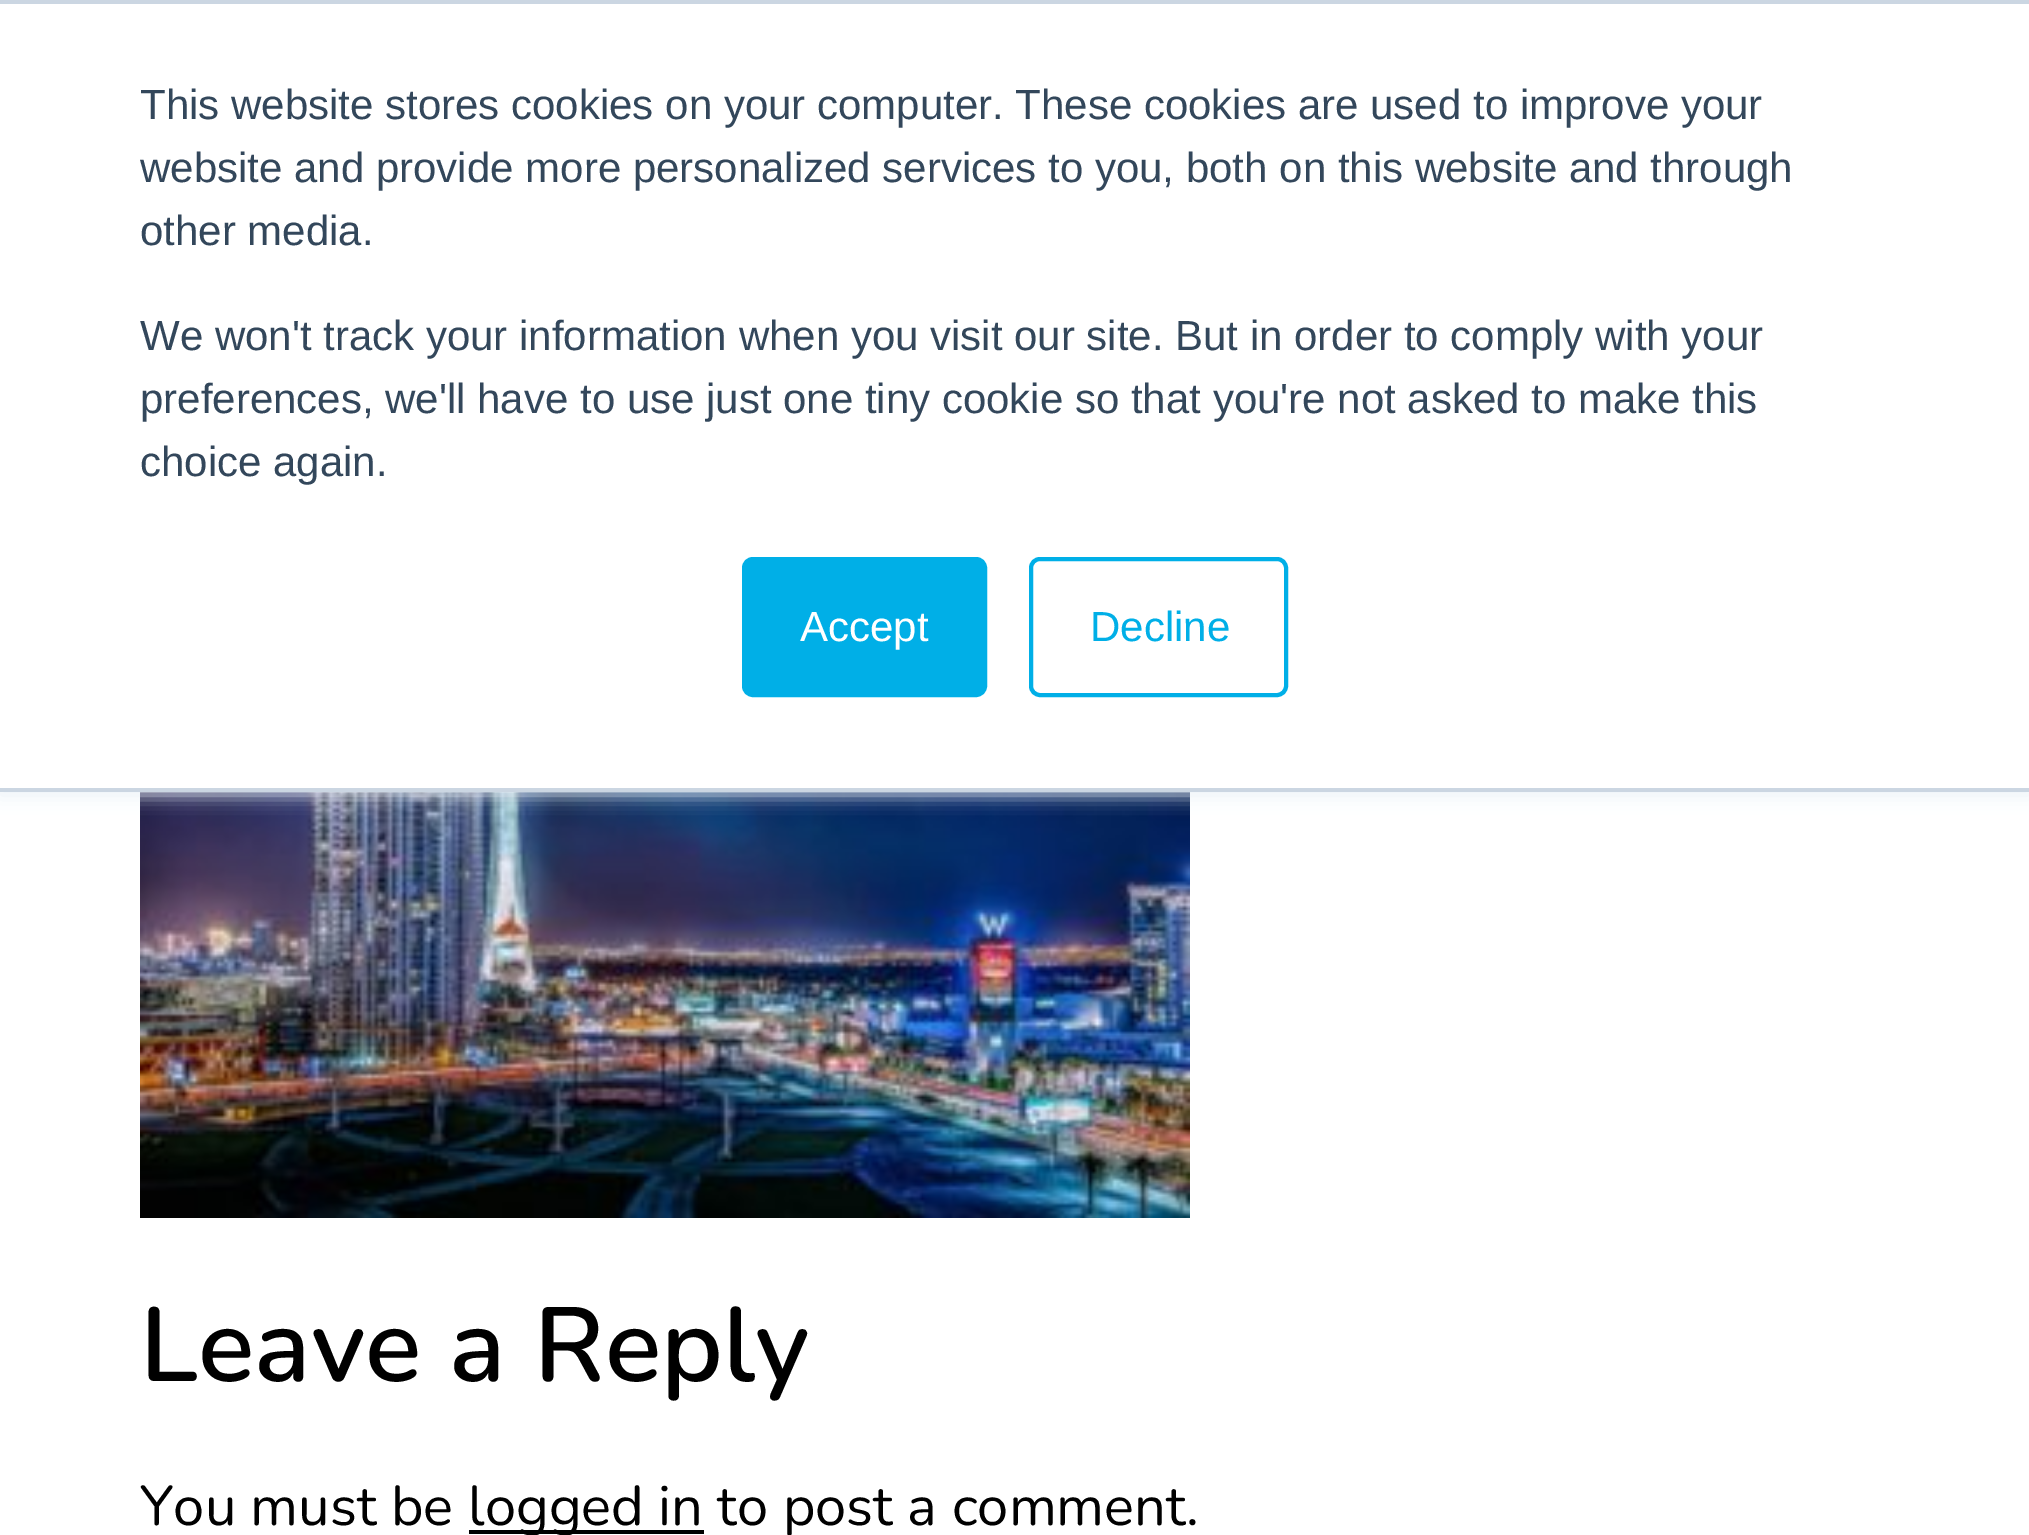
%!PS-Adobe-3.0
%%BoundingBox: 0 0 2029 1535
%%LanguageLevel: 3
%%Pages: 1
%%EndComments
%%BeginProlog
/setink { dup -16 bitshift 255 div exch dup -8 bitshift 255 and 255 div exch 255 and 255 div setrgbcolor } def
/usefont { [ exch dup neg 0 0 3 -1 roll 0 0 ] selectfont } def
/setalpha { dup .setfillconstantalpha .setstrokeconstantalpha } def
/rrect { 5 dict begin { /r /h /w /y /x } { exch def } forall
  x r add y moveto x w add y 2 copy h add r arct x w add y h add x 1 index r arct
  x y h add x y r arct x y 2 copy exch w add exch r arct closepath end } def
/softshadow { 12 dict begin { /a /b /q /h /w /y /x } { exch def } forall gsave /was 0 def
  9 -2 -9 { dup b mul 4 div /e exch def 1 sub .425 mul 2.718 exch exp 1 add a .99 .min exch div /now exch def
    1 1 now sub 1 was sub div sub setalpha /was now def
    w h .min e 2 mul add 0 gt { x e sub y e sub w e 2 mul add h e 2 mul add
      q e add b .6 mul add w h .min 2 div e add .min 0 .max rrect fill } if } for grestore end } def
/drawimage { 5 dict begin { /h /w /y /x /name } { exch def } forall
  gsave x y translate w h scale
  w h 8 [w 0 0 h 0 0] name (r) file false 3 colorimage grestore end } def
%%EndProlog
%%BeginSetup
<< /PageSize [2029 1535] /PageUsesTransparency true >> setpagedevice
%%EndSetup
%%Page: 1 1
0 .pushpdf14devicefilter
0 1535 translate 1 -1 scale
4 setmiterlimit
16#FFFFFF setink
0 0 2029 1535 rectfill
(img1.raw) 140 792 1050 426 drawimage
16#EAF0F6 setink
0 4 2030 791 0 9 1 softshadow
[
    [0 4 2029 784 16#FFFFFF]
    [0 0 2029 4 16#CBD6E2]
    [0 788 2029 4 16#CBD6E2]
] { aload pop setink rectfill } forall
/LiberationSans-Regular 42 usefont
16#33475B setink
[
    [(This website stores cookies on your computer. These cookies are used to improve your) 140 119]
    [(website and provide more personalized services to you, both on this website and through) 140 182]
    [(other media.) 140 245]
    [(We won't track your information when you visit our site. But in order to comply with your) 140 350]
    [(preferences, we'll have to use just one tiny cookie so that you're not asked to make this) 140 413]
    [(choice again.) 140 476]
] { aload pop moveto show } forall
16#00AFE7 setink
744 559 241 136 9 rrect gsave fill grestore
4 setlinewidth
stroke
16#FFFFFF setink
800 641 moveto (Accept) show
16#00AFE7 setink
1031 559 255 136 9 rrect stroke
1090 641 moveto (Decline) show
/Nunito-SemiBold 105 usefont
16#000000 setink
140 1381 moveto (Leave a Reply) show
/Nunito-Regular 56 usefont
140 1525 moveto (You must be) show
469 1530 235 4 rectfill
468 1525 moveto (logged in to post a comment.) show
.poppdf14devicefilter showpage
%%EOF
